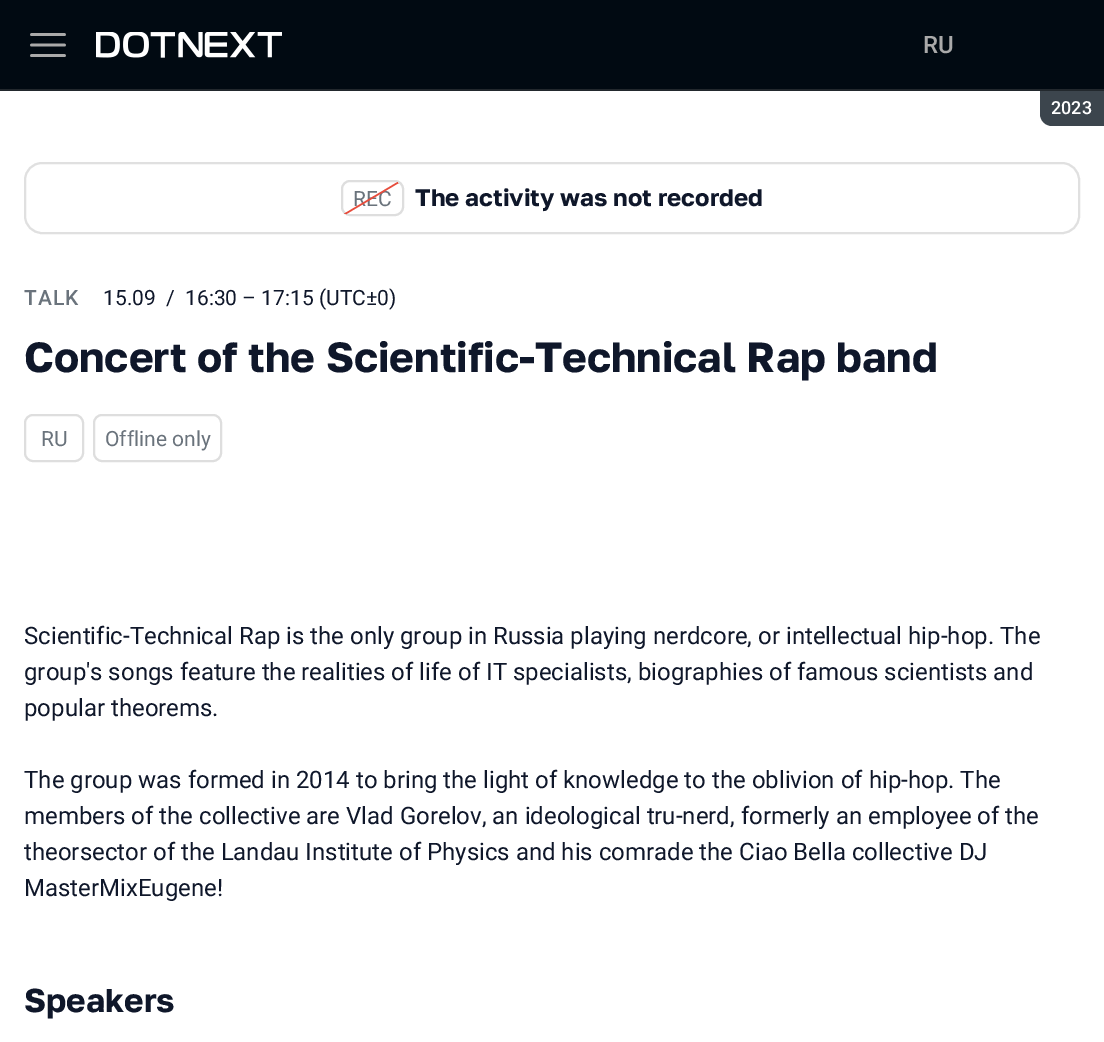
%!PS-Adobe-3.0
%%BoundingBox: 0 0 1104 1042
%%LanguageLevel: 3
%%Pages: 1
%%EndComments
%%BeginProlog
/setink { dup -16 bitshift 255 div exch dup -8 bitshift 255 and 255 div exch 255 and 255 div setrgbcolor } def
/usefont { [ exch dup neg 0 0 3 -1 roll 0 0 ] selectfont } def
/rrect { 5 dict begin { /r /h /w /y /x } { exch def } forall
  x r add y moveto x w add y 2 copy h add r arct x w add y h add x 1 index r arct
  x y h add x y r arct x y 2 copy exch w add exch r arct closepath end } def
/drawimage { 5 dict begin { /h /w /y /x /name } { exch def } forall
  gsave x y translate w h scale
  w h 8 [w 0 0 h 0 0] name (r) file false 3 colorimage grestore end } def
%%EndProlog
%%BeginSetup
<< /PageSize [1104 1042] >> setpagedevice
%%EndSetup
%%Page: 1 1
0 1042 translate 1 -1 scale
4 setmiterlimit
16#FFFFFF setink
0 0 1104 1042 rectfill
16#010A12 setink
0 0 1104 89 rectfill
/Roboto-Medium 24 usefont
16#AAAAAA setink
923 53 moveto (RU) show
(img1.raw) 30 33 36 24 drawimage
(img2.raw) 96 32 186 26 drawimage
16#3C454D setink
1040 90 moveto 1104 90 lineto 1104 126 lineto 1052 126 lineto 1045.5 126 1040 120.5 1040 114 curveto closepath fill
/Roboto-Medium 18 usefont
16#FFFFFF setink
1051 114 moveto (2023) show
16#22282D setink
0 89 1104 2 rectfill
16#E0E0E0 setink
2 setlinewidth
25 163 1054 70 17 rrect stroke
16#DEDEDE setink
342 181 61 34 8 rrect stroke
/Roboto-Regular 21 usefont
16#6A737C setink
353 206 moveto (REC) show
gsave
342 182 60 33 8 rrect clip newpath
16#E74C3C setink
1.5 setlinewidth
331.5 222 moveto 412.5 174 lineto stroke
grestore
/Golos-Bold 24 usefont
16#0F172A setink
415 206 moveto (The activity was not recorded) show
/Roboto-Medium 21 usefont
16#6A737C setink
24 305 moveto 1 0 (TALK) ashow
/Roboto-Regular 21 usefont
16#0F172A setink
[
    [(15.09) 103 305]
    [(/) 166 305]
    [(16:30 – 17:15 \(UTC±0\)) 185 305]
] { aload pop moveto show } forall
/Golos-Bold 42 usefont
24 372 moveto (Concert of the Scientific-Technical Rap band) show
16#DEDEDE setink
25 415 58 46 8 rrect stroke
/Roboto-Regular 21 usefont
16#6A737C setink
41 446 moveto (RU) show
16#DEDEDE setink
94 415 127 46 8 rrect stroke
16#6A737C setink
105 446 moveto (Offline only) show
/Roboto-Regular 24 usefont
16#0F172A setink
[
    [(Scientific-Technical Rap is the only group in Russia playing nerdcore, or intellectual hip-hop. The) 24 644]
    [(group's songs feature the realities of life of IT specialists, biographies of famous scientists and) 24 680]
    [(popular theorems.) 24 716]
    [(The group was formed in 2014 to bring the light of knowledge to the oblivion of hip-hop. The) 24 788]
    [(members of the collective are Vlad Gorelov, an ideological tru-nerd, formerly an employee of the) 24 824]
    [(theorsector of the Landau Institute of Physics and his comrade the Ciao Bella collective DJ) 24 860]
    [(MasterMixEugene!) 24 896]
] { aload pop moveto show } forall
/Golos-Bold 33 usefont
24 1012 moveto (Speakers) show
showpage
%%EOF
